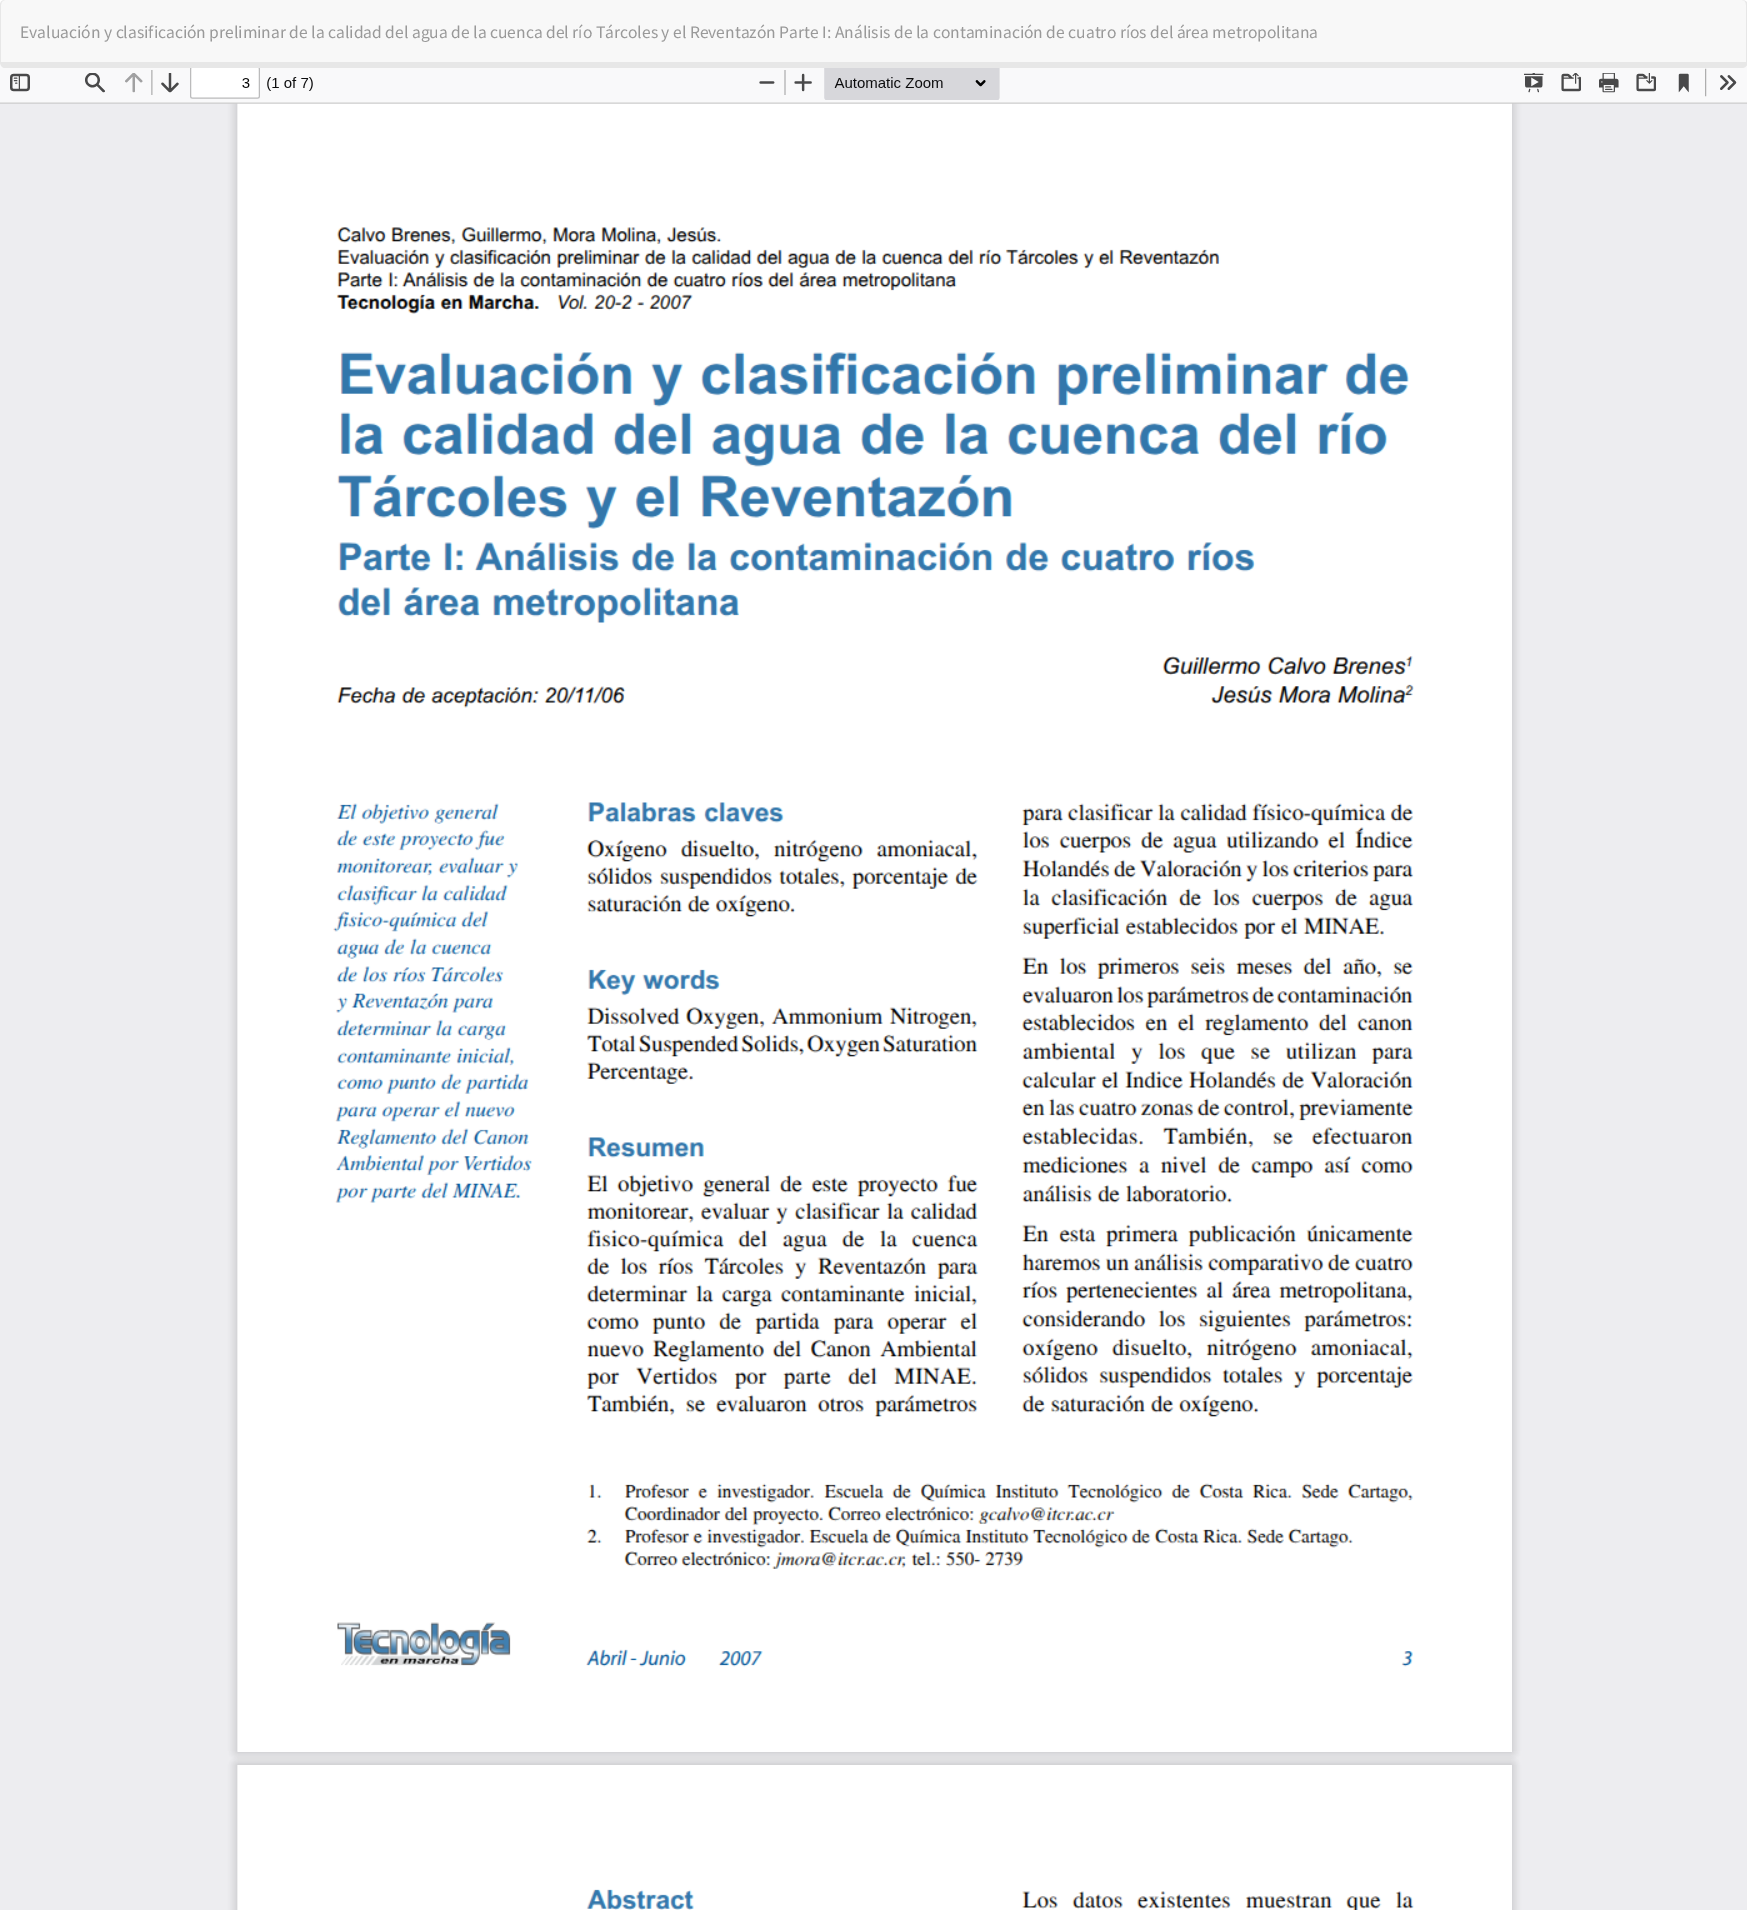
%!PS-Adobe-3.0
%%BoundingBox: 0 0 1747 1910
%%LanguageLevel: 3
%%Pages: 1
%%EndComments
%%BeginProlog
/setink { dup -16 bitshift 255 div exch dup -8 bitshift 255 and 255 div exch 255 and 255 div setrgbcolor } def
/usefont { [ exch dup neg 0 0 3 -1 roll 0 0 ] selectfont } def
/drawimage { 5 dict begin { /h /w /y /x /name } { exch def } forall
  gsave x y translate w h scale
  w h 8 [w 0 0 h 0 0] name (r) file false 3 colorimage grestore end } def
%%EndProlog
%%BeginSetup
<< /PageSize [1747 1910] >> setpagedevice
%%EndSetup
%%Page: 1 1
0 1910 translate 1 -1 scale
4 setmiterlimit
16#FFFFFF setink
0 0 1747 1910 rectfill
16#F8F8F8 setink
5 0 moveto 1742 0 lineto 1745 0 1746 2 1746 5 curveto 1746 62 lineto 1 62 lineto 1 5 lineto 1 2 3 0 5 0 curveto closepath fill
(img1.raw) 0 62 1747 1848 drawimage
16#E7E7E7 setink
5 0 moveto 1742 0 lineto 1745 0 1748 2 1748 5 curveto 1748 62 lineto 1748 65 1745 68 1742 68 curveto 5 68 lineto 2 68 0 65 0 62 curveto 0 5 lineto 0 2 2 0 5 0 curveto closepath 5 0 moveto 1742 0 lineto 1745 0 1746 2 1746 5 curveto 1746 62 lineto 1 62 lineto 1 5 lineto 1 2 3 0 5 0 curveto closepath eofill
/SourceSansPro-Regular 17.5 usefont
16#999999 setink
20 38 moveto (Evaluación y clasificación preliminar de la calidad del agua de la cuenca del río Tárcoles y el Reventazón Parte I: Análisis de la contaminación de cuatro ríos del área metropolitana) show
showpage
%%EOF
